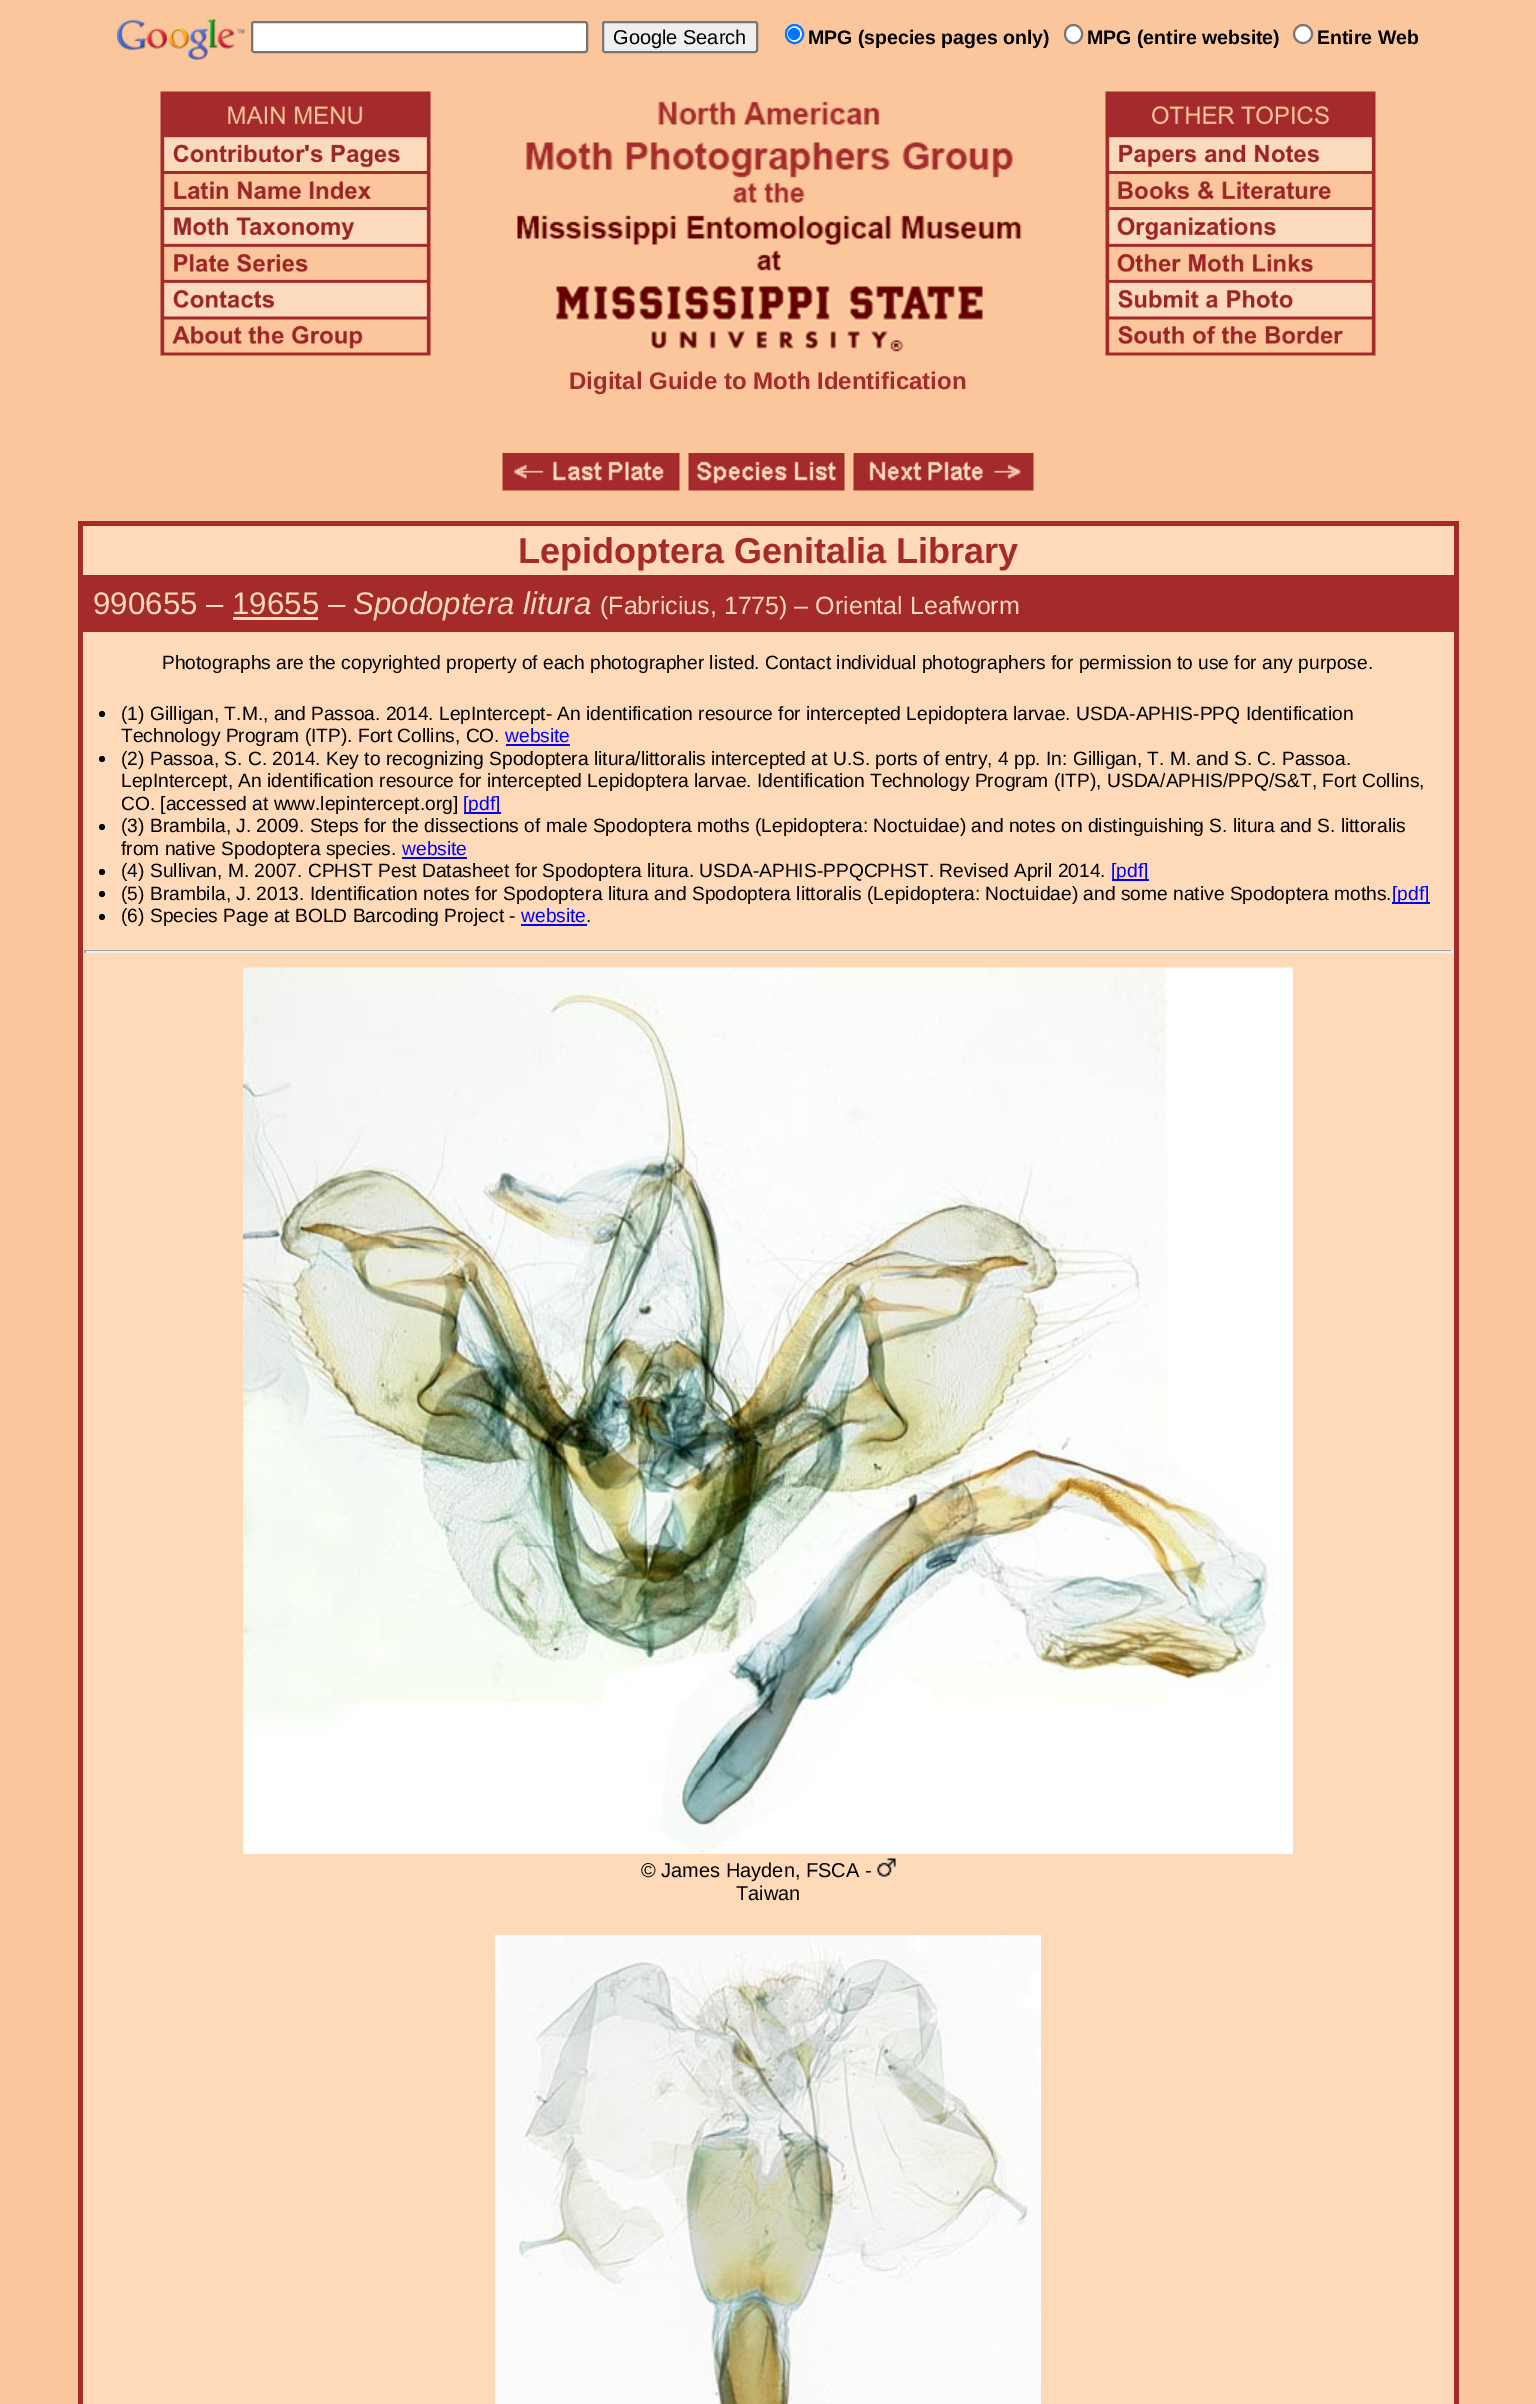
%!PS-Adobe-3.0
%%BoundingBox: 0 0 1536 2404
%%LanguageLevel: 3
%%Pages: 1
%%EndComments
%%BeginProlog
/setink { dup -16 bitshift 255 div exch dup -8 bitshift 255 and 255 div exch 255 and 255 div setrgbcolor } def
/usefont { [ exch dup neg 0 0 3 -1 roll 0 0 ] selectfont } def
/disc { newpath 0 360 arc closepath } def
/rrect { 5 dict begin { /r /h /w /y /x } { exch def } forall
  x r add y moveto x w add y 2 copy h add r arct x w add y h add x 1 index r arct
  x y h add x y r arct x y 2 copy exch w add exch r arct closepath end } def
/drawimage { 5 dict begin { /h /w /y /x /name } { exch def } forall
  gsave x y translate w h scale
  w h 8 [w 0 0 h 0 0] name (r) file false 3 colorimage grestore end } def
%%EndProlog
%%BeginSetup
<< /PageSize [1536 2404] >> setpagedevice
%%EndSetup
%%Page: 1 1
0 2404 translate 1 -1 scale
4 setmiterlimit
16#FCC69C setink
0 0 1536 2404 rectfill
(img1.raw) 117 19 128 41 drawimage
16#FFFFFF setink
252 22 335 30 2 rrect gsave fill grestore
16#767676 setink
2 setlinewidth
stroke
16#EFEFEF setink
603 22 154 30 2 rrect gsave fill grestore
16#767676 setink
stroke
/LiberationSans-Regular 20 usefont
16#000000 setink
613 44 moveto (Google Search) show
16#FFFFFF setink
786 25 17 18 8.5 rrect gsave fill grestore
16#0075FF setink
stroke
794 34 6 disc fill
/LiberationSans-Bold 19.5 usefont
16#000000 setink
808 44 moveto (MPG \(species pages only\)) show
16#FFFFFF setink
1065 25 17 18 8.5 rrect gsave fill grestore
16#767676 setink
stroke
16#000000 setink
1087 44 moveto (MPG \(entire website\)) show
16#FFFFFF setink
1303 34 9 disc gsave fill grestore
16#767676 setink
stroke
16#000000 setink
1317 44 moveto (Entire Web) show
(img2.raw) 160 91 271 265 drawimage
(img3.raw) 1105 91 271 265 drawimage
(img4.raw) 517 101 505 251 drawimage
/LiberationSans-Bold 24 usefont
16#A52A2A setink
569 389 moveto (Digital Guide to Moth Identification) show
(img5.raw) 502 453 178 38 drawimage
(img6.raw) 688 453 157 38 drawimage
(img7.raw) 853 453 181 38 drawimage
[
    [83 526 1371 1878 16#FFDAB9]
    [78 521 1380 5 16#A52A2A]
    [1454 521 5 1883 16#A52A2A]
    [78 521 5 1883 16#A52A2A]
] { aload pop setink rectfill } forall
/LiberationSans-Bold 36 usefont
518 563 moveto (Lepidoptera Genitalia Library) show
83 575 1371 57 rectfill
/LiberationSans-Regular 31.25 usefont
16#FFDAB9 setink
93 614 moveto (990655 – 19655 –) show
/LiberationSans-Italic 31.25 usefont
353 614 moveto (Spodoptera litura) show
/LiberationSans-Regular 25 usefont
600 614 moveto (\(Fabricius, 1775\) – Oriental Leafworm) show
233 617 85 3 rectfill
/LiberationSans-Regular 19.2 usefont
16#000000 setink
162 669 moveto (Photographs are the copyrighted property of each photographer listed. Contact individual photographers for permission to use for any purpose.) show
102 714 3 disc fill
121 720 moveto (\(1\) Gilligan, T.M., and Passoa. 2014. LepIntercept- An identification resource for intercepted Lepidoptera larvae. USDA-APHIS-PPQ Identification) show
121 742 moveto (Technology Program \(ITP\). Fort Collins, CO.) show
16#0000FF setink
505 742 moveto (website) show
506 744 64 2 rectfill
16#000000 setink
102 759 3 disc fill
[
    [(\(2\) Passoa, S. C. 2014. Key to recognizing Spodoptera litura/littoralis intercepted at U.S. ports of entry, 4 pp. In: Gilligan, T. M. and S. C. Passoa.) 121 765]
    [(LepIntercept, An identification resource for intercepted Lepidoptera larvae. Identification Technology Program \(ITP\), USDA/APHIS/PPQ/S&T, Fort Collins,) 121 787]
    [(CO. [accessed at www.lepintercept.org]) 121 810]
] { aload pop moveto show } forall
16#0000FF setink
464 812 37 2 rectfill
463 810 moveto ([pdf]) show
16#000000 setink
102 827 3 disc fill
121 832 moveto (\(3\) Brambila, J. 2009. Steps for the dissections of male Spodoptera moths \(Lepidoptera: Noctuidae\) and notes on distinguishing S. litura and S. littoralis) show
121 855 moveto (from native Spodoptera species.) show
16#0000FF setink
402 855 moveto (website) show
402 857 65 2 rectfill
16#000000 setink
102 872 3 disc fill
121 877 moveto (\(4\) Sullivan, M. 2007. CPHST Pest Datasheet for Spodoptera litura. USDA-APHIS-PPQCPHST. Revised April 2014.) show
16#0000FF setink
1112 879 37 2 rectfill
1111 877 moveto ([pdf]) show
16#000000 setink
102 894 3 disc fill
121 900 moveto (\(5\) Brambila, J. 2013. Identification notes for Spodoptera litura and Spodoptera littoralis \(Lepidoptera: Noctuidae\) and some native Spodoptera moths.) show
16#0000FF setink
1392 902 38 2 rectfill
1392 900 moveto ([pdf]) show
16#000000 setink
102 917 3 disc fill
121 922 moveto (\(6\) Species Page at BOLD Barcoding Project -) show
16#0000FF setink
521 922 moveto (website) show
521 924 66 2 rectfill
16#000000 setink
586 922 moveto (.) show
[
    [84 950 1368 1 16#9F9F9F]
    [1451 950 2 3 16#EEEEEE]
    [84 951 1368 2 16#EEEEEE]
    [84 950 2 3 16#9F9F9F]
] { aload pop setink rectfill } forall
(img8.raw) 243 967 1050 887 drawimage
/LiberationSans-Regular 20 usefont
16#000000 setink
641 1877 moveto (© James Hayden, FSCA -) show
(img9.raw) 877 1858 19 19 drawimage
736 1900 moveto (Taiwan) show
(img10.raw) 495 1935 546 469 drawimage
showpage
%%EOF
